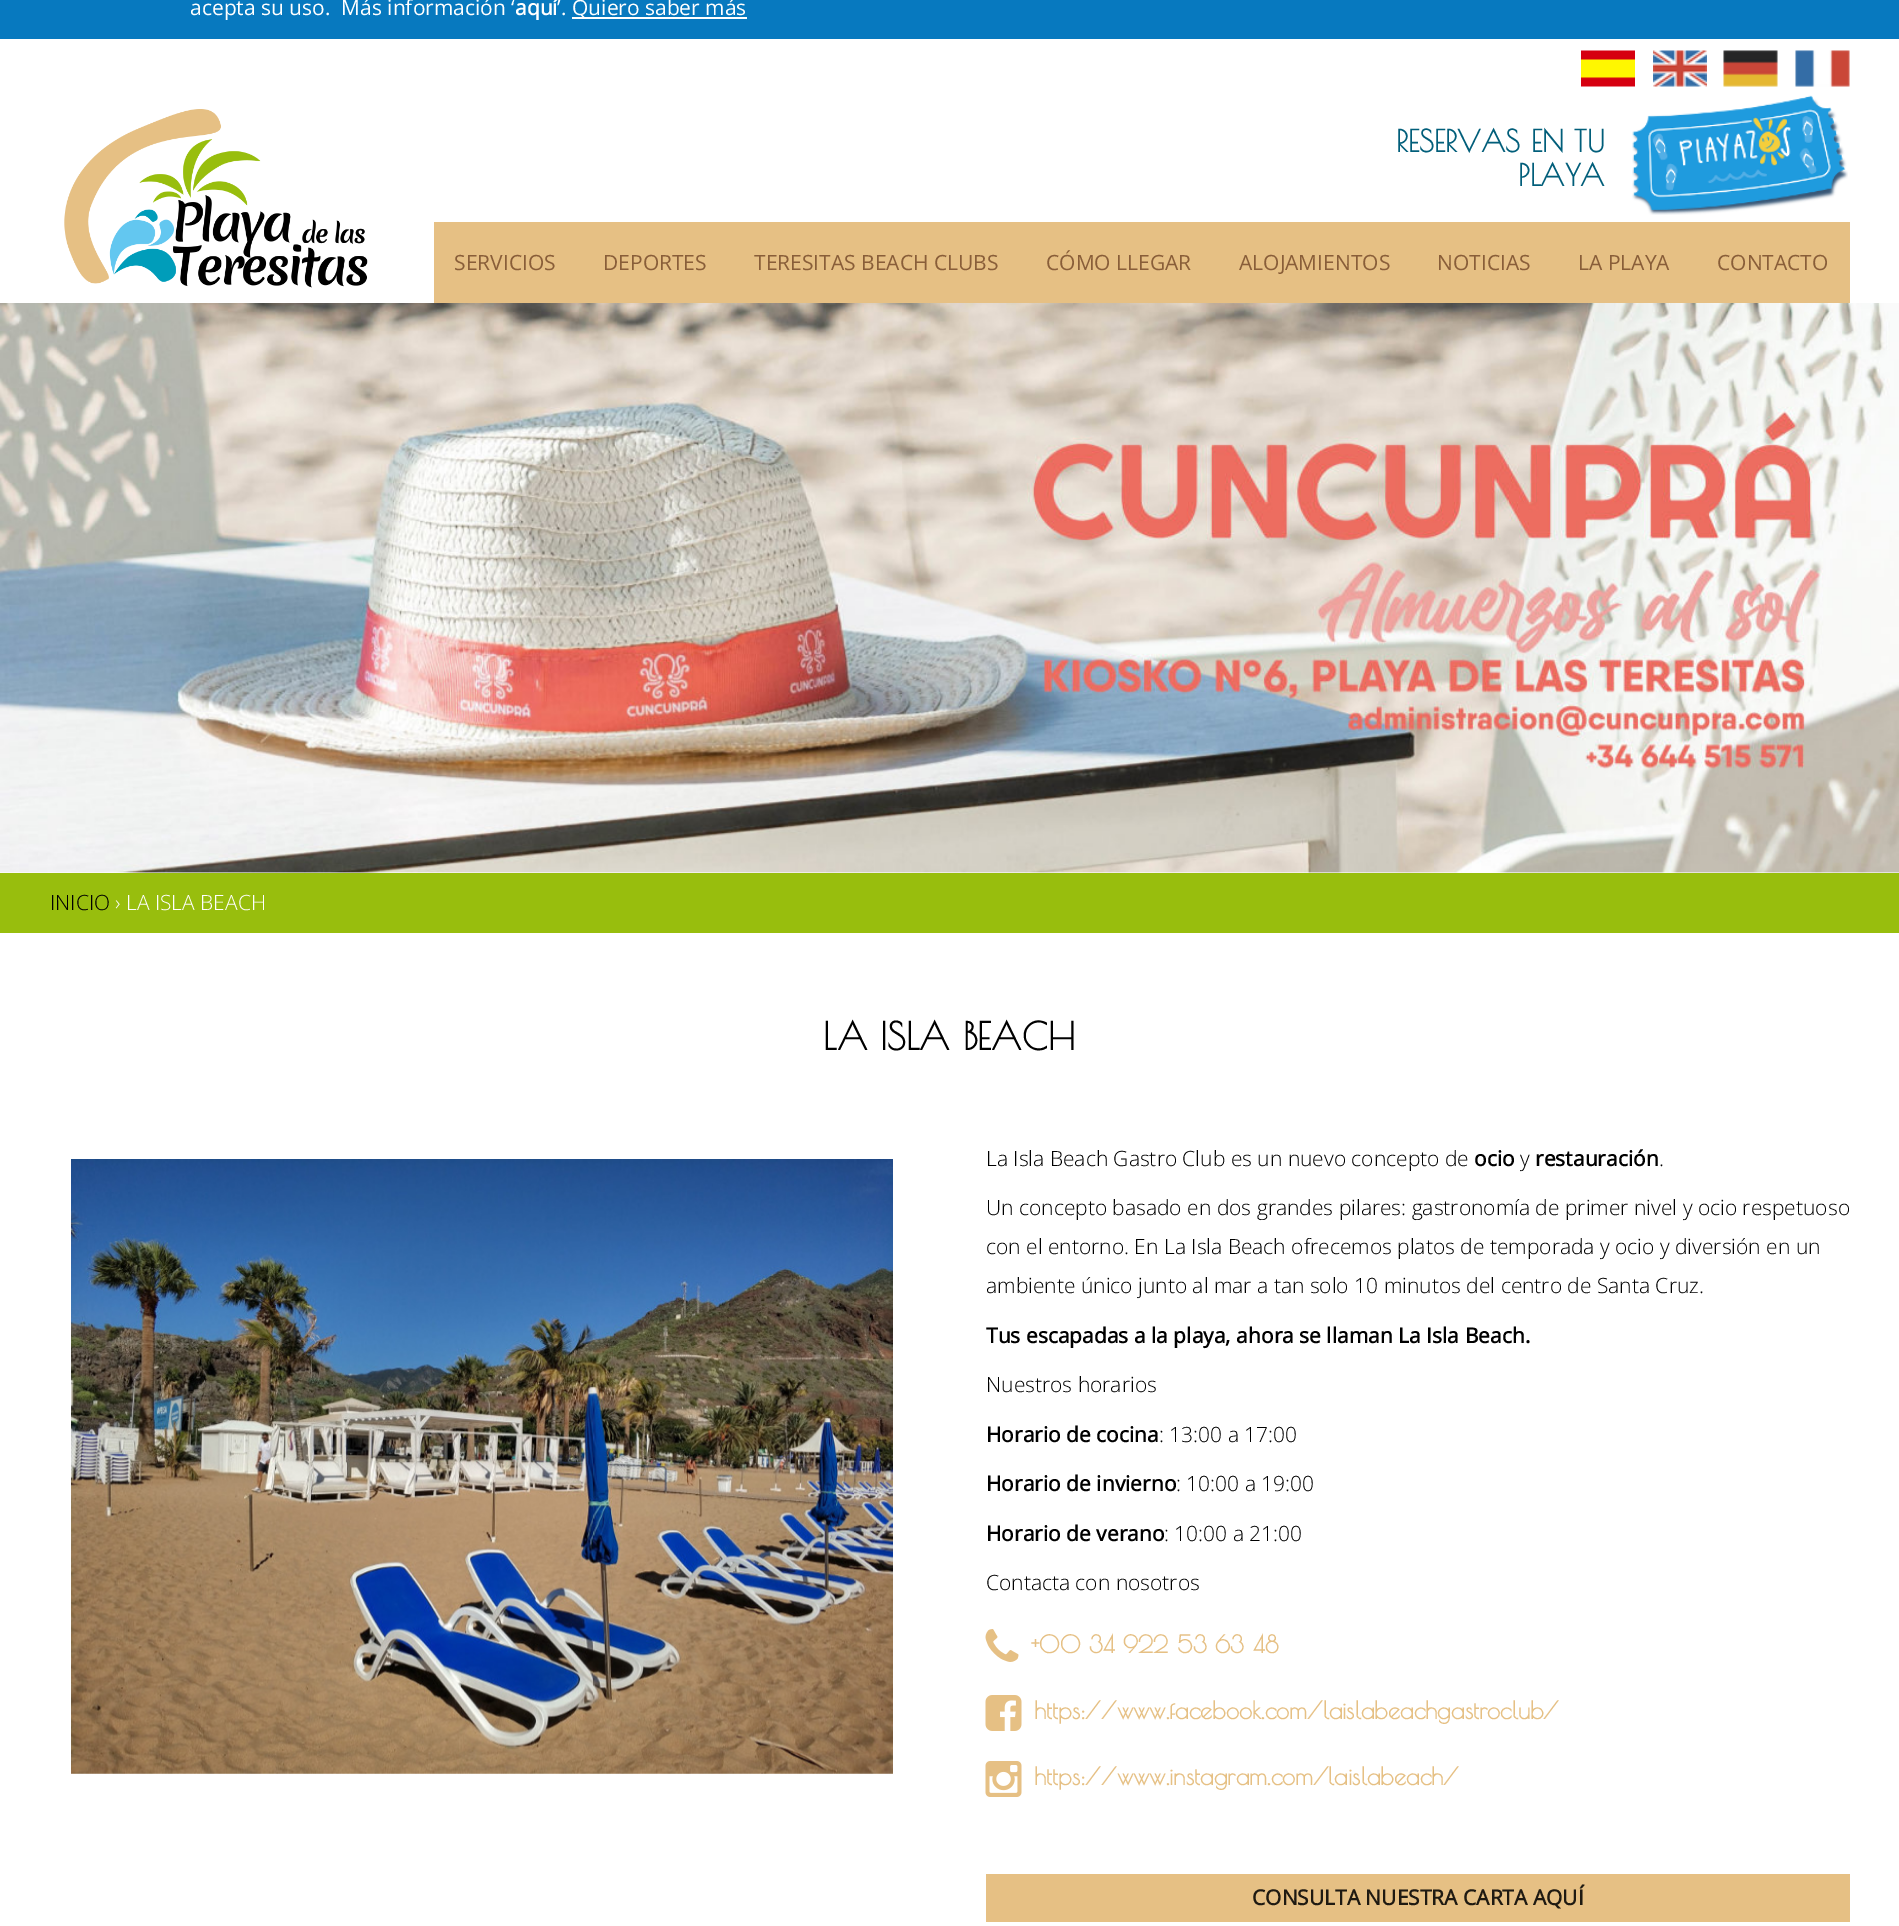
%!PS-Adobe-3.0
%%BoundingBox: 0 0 1899 1926
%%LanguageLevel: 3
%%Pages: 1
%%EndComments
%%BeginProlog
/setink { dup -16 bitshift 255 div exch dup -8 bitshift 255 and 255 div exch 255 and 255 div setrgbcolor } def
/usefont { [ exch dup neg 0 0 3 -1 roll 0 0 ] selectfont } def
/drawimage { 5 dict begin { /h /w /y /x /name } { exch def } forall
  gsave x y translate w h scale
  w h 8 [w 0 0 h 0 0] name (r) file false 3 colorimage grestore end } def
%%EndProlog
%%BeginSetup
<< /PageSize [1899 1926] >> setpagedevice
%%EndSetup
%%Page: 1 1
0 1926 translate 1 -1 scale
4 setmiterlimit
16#FFFFFF setink
0 0 1899 1926 rectfill
16#0779BF setink
0 0 1899 39 rectfill
/OpenSans-Regular 21 usefont
16#FFFFFF setink
190 15 moveto (acepta su uso.  Más información ‘) show
/OpenSans-Bold 21 usefont
515 15 moveto (aquí) show
/OpenSans-Regular 21 usefont
557 15 moveto (’.) show
572 17 175 2 rectfill
572 15 moveto (Quiero saber más) show
(img1.raw) 64 109 304 179 drawimage
(img2.raw) 1581 50 54 37 drawimage
(img3.raw) 1653 50 54 37 drawimage
(img4.raw) 1723 50 55 37 drawimage
(img5.raw) 1795 50 55 37 drawimage
/PoiretOne-Bold 30 usefont
16#015E7A setink
1396 152 moveto (RESERVAS EN TU) show
1518 186 moveto (PLAYA) show
(img6.raw) 1632 95 216 120 drawimage
16#E6C084 setink
434 222 1416 81 rectfill
/OpenSans-Regular 21 usefont
16#895E39 setink
[
    [(SERVICIOS) 454 270]
    [(DEPORTES) 603 270]
    [(TERESITAS BEACH CLUBS) 754 270]
    [(CÓMO LLEGAR) 1046 270]
    [(ALOJAMIENTOS) 1239 270]
    [(NOTICIAS) 1437 270]
    [(LA PLAYA) 1578 270]
    [(CONTACTO) 1717 270]
] { aload pop moveto show } forall
(img7.raw) 0 303 1899 570 drawimage
16#98BE0D setink
0 873 1899 60 rectfill
/OpenSans-Light 21 usefont
16#000000 setink
50 910 moveto (INICIO) show
16#FFFFFF setink
115 910 moveto (› LA ISLA BEACH) show
/PoiretOne-Bold 37.5 usefont
16#000000 setink
823 1050 moveto (LA ISLA BEACH) show
(img8.raw) 71 1159 822 615 drawimage
/OpenSans-Light 21 usefont
986 1166 moveto (La Isla Beach Gastro Club es un nuevo concepto de) show
/OpenSans-Bold 21 usefont
1474 1166 moveto (ocio) show
/OpenSans-Light 21 usefont
1520 1166 moveto (y) show
/OpenSans-Bold 21 usefont
1535 1166 moveto (restauración) show
/OpenSans-Light 21 usefont
[
    [(.) 1659 1166]
    [(Un concepto basado en dos grandes pilares: gastronomía de primer nivel y ocio respetuoso) 986 1215]
    [(con el entorno. En La Isla Beach ofrecemos platos de temporada y ocio y diversión en un) 986 1254]
    [(ambiente único junto al mar a tan solo 10 minutos del centro de Santa Cruz.) 986 1293]
] { aload pop moveto show } forall
/OpenSans-Bold 21 usefont
986 1343 moveto (Tus escapadas a la playa, ahora se llaman La Isla Beach.) show
/OpenSans-Light 21 usefont
986 1392 moveto (Nuestros horarios) show
/OpenSans-Bold 21 usefont
986 1442 moveto (Horario de cocina) show
/OpenSans-Light 21 usefont
1159 1442 moveto (: 13:00 a 17:00) show
/OpenSans-Bold 21 usefont
986 1491 moveto (Horario de invierno) show
/OpenSans-Light 21 usefont
1176 1491 moveto (: 10:00 a 19:00) show
/OpenSans-Bold 21 usefont
986 1541 moveto (Horario de verano) show
/OpenSans-Light 21 usefont
1164 1541 moveto (: 10:00 a 21:00) show
986 1590 moveto (Contacta con nosotros) show
(img9.raw) 985 1629 34 33 drawimage
/PoiretOne-Bold 24 usefont
16#E6C084 setink
1031 1653 moveto (+00 34 922 53 63 48) show
(img10.raw) 985 1695 37 36 drawimage
1034 1719 moveto (https://www.facebook.com/laislabeachgastroclub/) show
(img11.raw) 985 1761 37 36 drawimage
1034 1785 moveto (https://www.instagram.com/laislabeach/) show
986 1874 864 48 rectfill
/OpenSans-Bold 21 usefont
16#1F1A12 setink
1252 1905 moveto (CONSULTA NUESTRA CARTA AQUÍ) show
showpage
%%EOF
